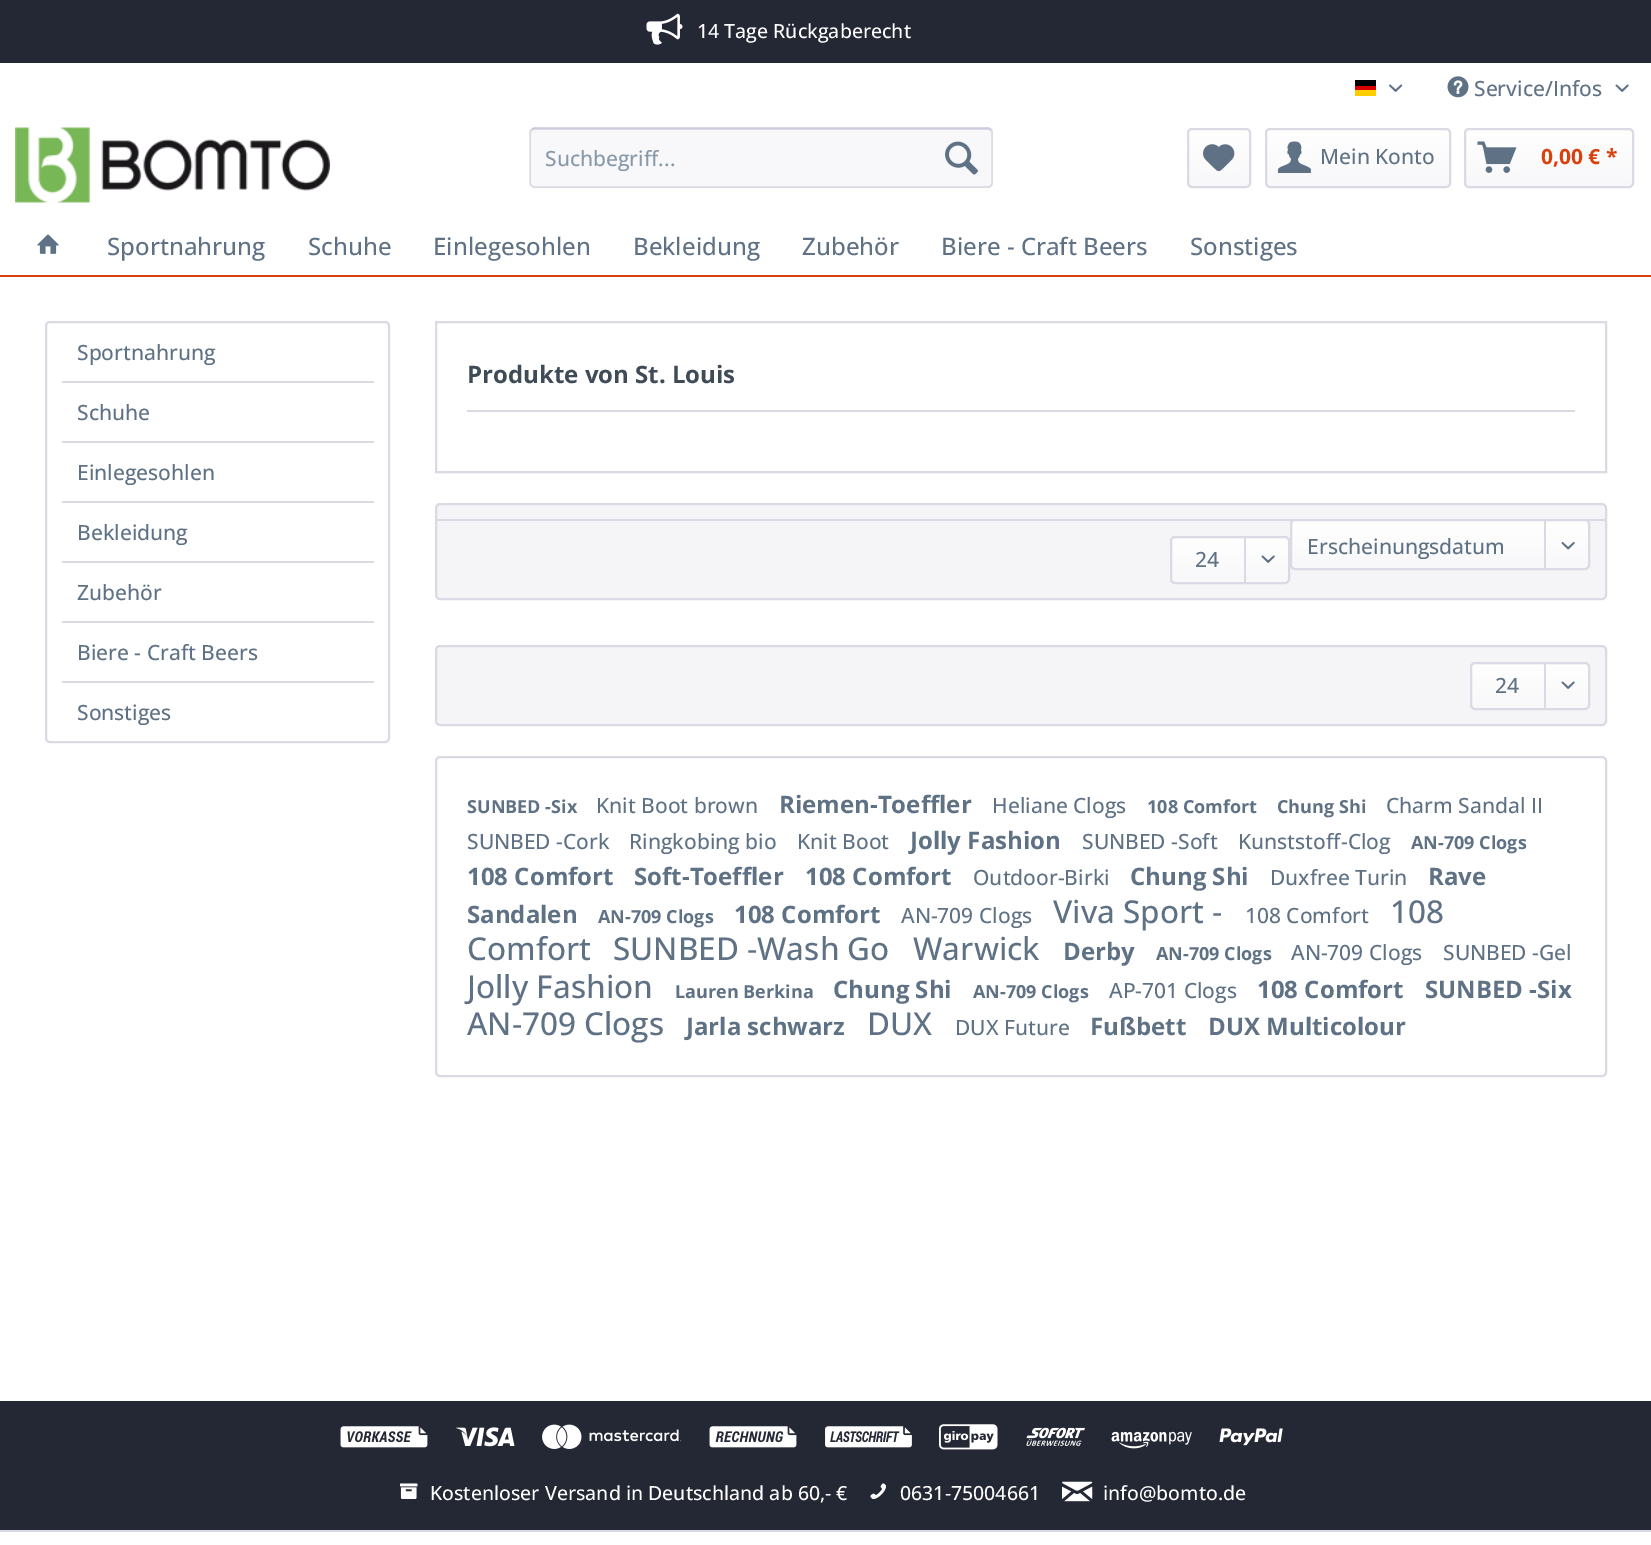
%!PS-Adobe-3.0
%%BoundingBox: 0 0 1651 1545
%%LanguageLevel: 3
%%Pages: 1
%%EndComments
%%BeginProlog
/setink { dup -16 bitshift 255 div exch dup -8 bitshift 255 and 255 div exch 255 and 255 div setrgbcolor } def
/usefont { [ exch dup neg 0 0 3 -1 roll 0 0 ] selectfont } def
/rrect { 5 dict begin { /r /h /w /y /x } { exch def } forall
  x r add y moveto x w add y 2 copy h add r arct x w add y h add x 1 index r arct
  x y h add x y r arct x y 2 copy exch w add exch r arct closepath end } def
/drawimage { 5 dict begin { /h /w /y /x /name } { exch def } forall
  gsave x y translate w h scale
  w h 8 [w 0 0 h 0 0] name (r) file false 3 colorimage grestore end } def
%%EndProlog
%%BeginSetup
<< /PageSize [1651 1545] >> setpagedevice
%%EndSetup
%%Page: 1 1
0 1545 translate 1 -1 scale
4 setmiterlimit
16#FFFFFF setink
0 0 1651 1545 rectfill
16#242734 setink
0 0 1651 63 rectfill
(img1.raw) 646 13 37 32 drawimage
/OpenSans-Medium 19.5 usefont
16#FFFFFF setink
697 38 moveto (14 Tage Rückgaberecht) show
[
    [1355 80 21 6 16#000000]
    [1355 86 21 4 16#DD0000]
    [1355 90 21 6 16#FFCE00]
] { aload pop setink rectfill } forall
(img2.raw) 1389 84 14 8 drawimage
(img3.raw) 1447 76 22 22 drawimage
/OpenSans-Medium 21 usefont
16#5F7285 setink
1474 96 moveto (Service/Infos) show
(img4.raw) 1615 84 14 8 drawimage
(img5.raw) 15 127 315 76 drawimage
16#F8F8FA setink
530 128 463 60 5 rrect fill
16#DADAE5 setink
534 130 moveto 988 130 lineto 990 130 992 132 992 134 curveto 992 132 992 129 989 129 curveto 533 129 lineto 532 130 lineto 531 134 lineto 531 132 532 130 534 130 curveto closepath fill
16#CBCBDB setink
1.5 setlinewidth
531.5 129.5 moveto 534 128 lineto 988.5 128 lineto 991 129.5 lineto stroke
16#DADAE5 setink
991 129.5 moveto 992 130 992 131 992 132 curveto 992 183 lineto 992 184 992 185 991 185.5 curveto 990.5 186.5 989.5 187 988.5 187 curveto 534 187 lineto 533 187 532 186.5 531.5 185.5 curveto 530.5 185 530 184 530 183 curveto 530 132 lineto 530 131 530.5 130 531.5 129.5 curveto stroke
16#8798A9 setink
545 166 moveto (Suchbegriff...) show
(img6.raw) 945 141 33 34 drawimage
gsave 1188 129 62 57 3 rrect clip newpath
<< /ShadingType 2 /ColorSpace /DeviceRGB /Coords [1219 129 1219 186] /Extend [true true] /Function << /FunctionType 2 /Domain [0 1] /C0 [1 1 1] /C1 [0.973 0.973 0.98] /N 1 >> >> shfill grestore
16#DADAE5 setink
2 setlinewidth
1188 129 62 58 4 rrect stroke
(img7.raw) 1203 144 32 28 drawimage
gsave 1266 129 183 57 3 rrect clip newpath
<< /ShadingType 2 /ColorSpace /DeviceRGB /Coords [1358 129 1358 186] /Extend [true true] /Function << /FunctionType 2 /Domain [0 1] /C0 [1 1 1] /C1 [0.973 0.973 0.98] /N 1 >> >> shfill grestore
1266 129 184 58 4 rrect stroke
(img8.raw) 1278 141 33 32 drawimage
16#5F7285 setink
1320 164 moveto (Mein Konto) show
gsave 1466 129 166 57 3 rrect clip newpath
<< /ShadingType 2 /ColorSpace /DeviceRGB /Coords [1549 129 1549 186] /Extend [true true] /Function << /FunctionType 2 /Domain [0 1] /C0 [1 1 1] /C1 [0.973 0.973 0.98] /N 1 >> >> shfill grestore
16#DADAE5 setink
1465 129 168 58 4 rrect stroke
(img9.raw) 1477 141 40 32 drawimage
/OpenSans-Bold 21 usefont
16#D9400B setink
1541 164 moveto (0,00 € *) show
0 275 1651 2 rectfill
(img10.raw) 37 234 22 20 drawimage
/OpenSans-Medium 24 usefont
16#5F7285 setink
[
    [(Sportnahrung) 107 255]
    [(Schuhe) 308 255]
    [(Einlegesohlen) 433 255]
    [(Bekleidung) 633 255]
    [(Zubehör) 802 255]
    [(Biere - Craft Beers) 941 255]
    [(Sonstiges) 1190 255]
] { aload pop moveto show } forall
16#DADAE5 setink
46 322 343 420 4 rrect stroke
62 381 312 2 rectfill
/OpenSans-Medium 21 usefont
16#5F7285 setink
77 360 moveto (Sportnahrung) show
16#DADAE5 setink
62 441 312 2 rectfill
16#5F7285 setink
77 420 moveto (Schuhe) show
16#DADAE5 setink
62 501 312 2 rectfill
16#5F7285 setink
77 480 moveto (Einlegesohlen) show
16#DADAE5 setink
62 561 312 2 rectfill
16#5F7285 setink
77 540 moveto (Bekleidung) show
16#DADAE5 setink
62 621 312 2 rectfill
16#5F7285 setink
77 600 moveto (Zubehör) show
16#DADAE5 setink
62 681 312 2 rectfill
16#5F7285 setink
77 660 moveto (Biere - Craft Beers) show
77 720 moveto (Sonstiges) show
16#DADAE5 setink
436 322 1170 150 rectstroke
467 410 1108 2 rectfill
/OpenSans-Bold 24 usefont
16#3F4C58 setink
467 383 moveto (Produkte von St. Louis) show
16#F5F5F8 setink
436 504 1170 95 4 rrect gsave fill grestore
16#DADAE5 setink
stroke
437 519 1168 2 rectfill
gsave 1172 537 117 45 3 rrect clip newpath
<< /ShadingType 2 /ColorSpace /DeviceRGB /Coords [1230 537 1230 582] /Extend [true true] /Function << /FunctionType 2 /Domain [0 1] /C0 [1 1 1] /C1 [0.973 0.973 0.98] /N 1 >> >> shfill grestore
1171 537 118 46 4 rrect stroke
/OpenSans-Medium 21 usefont
16#5F7285 setink
1195 567 moveto (24) show
16#DADAE5 setink
1244 537 2 47 rectfill
(img11.raw) 1261 555 14 8 drawimage
gsave 1292 521 297 48 3 rrect clip newpath
<< /ShadingType 2 /ColorSpace /DeviceRGB /Coords [1440 521 1440 569] /Extend [true true] /Function << /FunctionType 2 /Domain [0 1] /C0 [1 1 1] /C1 [0.973 0.973 0.98] /N 1 >> >> shfill grestore
1291 520 298 49 4 rrect stroke
16#5F7285 setink
1307 554 moveto (Erscheinungsdatum) show
16#DADAE5 setink
1544 521 2 49 rectfill
(img12.raw) 1561 542 14 8 drawimage
16#F5F5F8 setink
436 646 1170 79 4 rrect gsave fill grestore
16#DADAE5 setink
stroke
gsave 1472 663 117 45 3 rrect clip newpath
<< /ShadingType 2 /ColorSpace /DeviceRGB /Coords [1530 663 1530 708] /Extend [true true] /Function << /FunctionType 2 /Domain [0 1] /C0 [1 1 1] /C1 [0.973 0.973 0.98] /N 1 >> >> shfill grestore
1471 663 118 46 4 rrect stroke
16#5F7285 setink
1495 693 moveto (24) show
16#DADAE5 setink
1544 663 2 47 rectfill
(img11.raw) 1561 681 14 8 drawimage
436 757 1170 319 4 rrect stroke
/OpenSans-Bold 18 usefont
16#5F7285 setink
467 813 moveto (SUNBED -Six) show
/OpenSans-Medium 21 usefont
596 813 moveto (Knit Boot brown) show
/OpenSans-Bold 24 usefont
779 813 moveto (Riemen-Toeffler) show
/OpenSans-Medium 21 usefont
992 813 moveto (Heliane Clogs) show
/OpenSans-Bold 18 usefont
1147 813 moveto (108 Comfort) show
1277 813 moveto (Chung Shi) show
/OpenSans-Medium 21 usefont
[
    [(Charm Sandal II) 1386 813]
    [(SUNBED -Cork) 467 849]
    [(Ringkobing bio) 629 849]
    [(Knit Boot) 797 849]
] { aload pop moveto show } forall
/OpenSans-Bold 24 usefont
910 849 moveto (Jolly Fashion) show
/OpenSans-Medium 21 usefont
1082 849 moveto (SUNBED -Soft) show
1238 849 moveto (Kunststoff-Clog) show
/OpenSans-Bold 18 usefont
1411 849 moveto (AN-709 Clogs) show
/OpenSans-Bold 24 usefont
[
    [(108 Comfort) 467 885]
    [(Soft-Toeffler) 634 885]
    [(108 Comfort) 805 885]
] { aload pop moveto show } forall
/OpenSans-Medium 21 usefont
973 885 moveto (Outdoor-Birki) show
/OpenSans-Bold 24 usefont
1130 885 moveto (Chung Shi) show
/OpenSans-Medium 21 usefont
1270 885 moveto (Duxfree Turin) show
/OpenSans-Bold 24 usefont
1428 885 moveto (Rave) show
467 923 moveto (Sandalen) show
/OpenSans-Bold 18 usefont
598 923 moveto (AN-709 Clogs) show
/OpenSans-Bold 24 usefont
734 923 moveto (108 Comfort) show
/OpenSans-Medium 21 usefont
901 923 moveto (AN-709 Clogs) show
/OpenSans-Medium 31.5 usefont
1053 923 moveto (Viva Sport -) show
/OpenSans-Medium 21 usefont
1245 923 moveto (108 Comfort) show
/OpenSans-Medium 31.5 usefont
[
    [(108) 1390 923]
    [(Comfort) 467 960]
    [(SUNBED -Wash Go) 613 960]
    [(Warwick) 913 960]
] { aload pop moveto show } forall
/OpenSans-Bold 24 usefont
1063 960 moveto (Derby) show
/OpenSans-Bold 18 usefont
1156 960 moveto (AN-709 Clogs) show
/OpenSans-Medium 21 usefont
1291 960 moveto (AN-709 Clogs) show
1443 960 moveto (SUNBED -Gel) show
/OpenSans-Medium 31.5 usefont
467 998 moveto (Jolly Fashion) show
/OpenSans-Bold 18 usefont
675 998 moveto (Lauren Berkina) show
/OpenSans-Bold 24 usefont
833 998 moveto (Chung Shi) show
/OpenSans-Bold 18 usefont
973 998 moveto (AN-709 Clogs) show
/OpenSans-Medium 21 usefont
1109 998 moveto (AP-701 Clogs) show
/OpenSans-Bold 24 usefont
1257 998 moveto (108 Comfort) show
1425 998 moveto (SUNBED -Six) show
/OpenSans-Medium 31.5 usefont
467 1035 moveto (AN-709 Clogs) show
/OpenSans-Bold 24 usefont
686 1035 moveto (Jarla schwarz) show
/OpenSans-Medium 31.5 usefont
867 1035 moveto (DUX) show
/OpenSans-Medium 21 usefont
955 1035 moveto (DUX Future) show
/OpenSans-Bold 24 usefont
1090 1035 moveto (Fußbett) show
1208 1035 moveto (DUX Multicolour) show
16#242734 setink
0 1401 1651 129 rectfill
(img13.raw) 340 1426 88 22 drawimage
(img14.raw) 456 1427 59 20 drawimage
(img15.raw) 542 1424 140 25 drawimage
(img16.raw) 709 1426 88 22 drawimage
(img17.raw) 825 1426 87 22 drawimage
(img18.raw) 939 1424 59 26 drawimage
(img19.raw) 1026 1427 59 19 drawimage
(img20.raw) 1111 1431 81 18 drawimage
(img21.raw) 1219 1428 64 18 drawimage
(img22.raw) 400 1483 18 16 drawimage
/OpenSans-Medium 19.5 usefont
16#FFFFFF setink
430 1500 moveto (Kostenloser Versand in Deutschland ab 60,- €) show
(img23.raw) 870 1483 16 16 drawimage
900 1500 moveto (0631-75004661) show
(img24.raw) 1062 1481 31 21 drawimage
1103 1500 moveto (info@bomto.de) show
16#DADAE5 setink
0 1530 1651 2 rectfill
showpage
%%EOF
